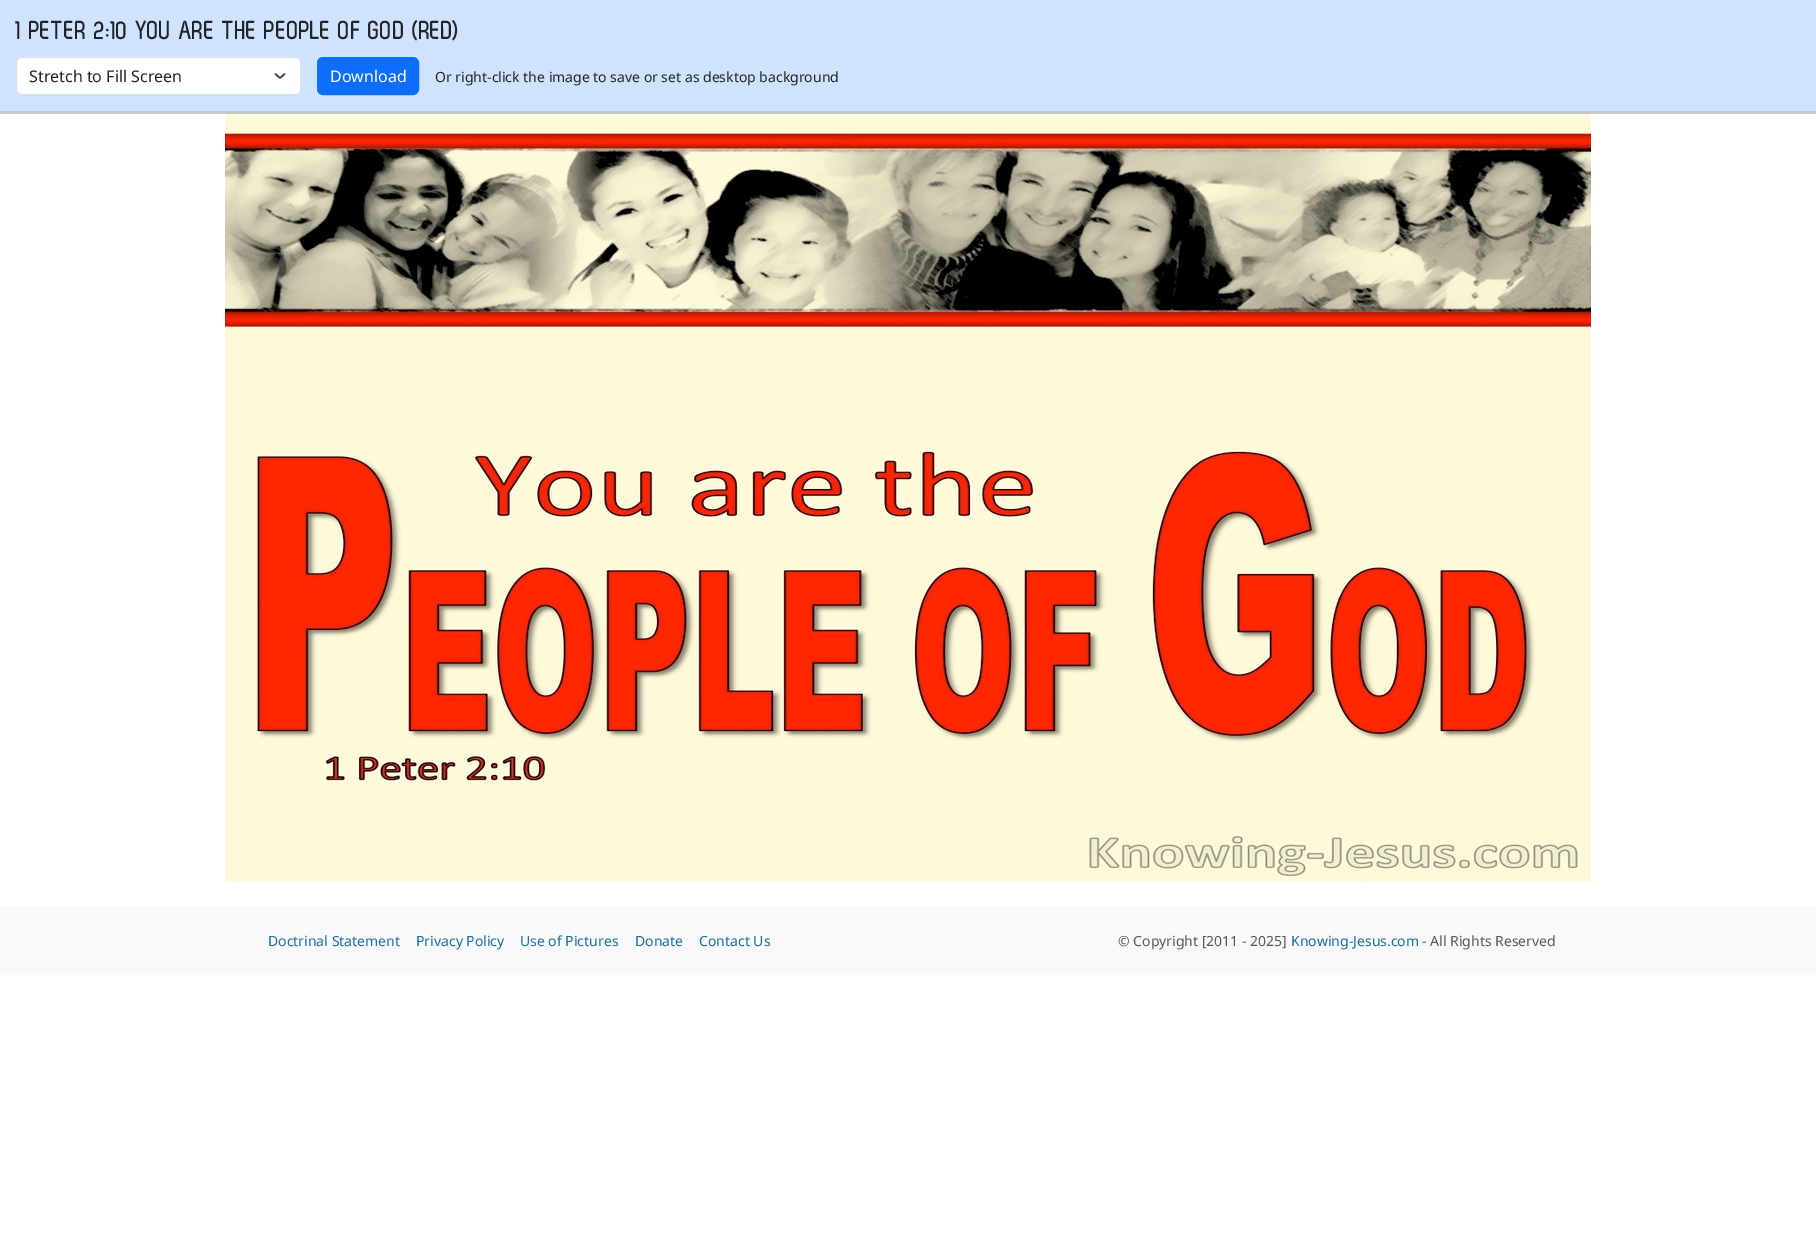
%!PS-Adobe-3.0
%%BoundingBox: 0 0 1816 1234
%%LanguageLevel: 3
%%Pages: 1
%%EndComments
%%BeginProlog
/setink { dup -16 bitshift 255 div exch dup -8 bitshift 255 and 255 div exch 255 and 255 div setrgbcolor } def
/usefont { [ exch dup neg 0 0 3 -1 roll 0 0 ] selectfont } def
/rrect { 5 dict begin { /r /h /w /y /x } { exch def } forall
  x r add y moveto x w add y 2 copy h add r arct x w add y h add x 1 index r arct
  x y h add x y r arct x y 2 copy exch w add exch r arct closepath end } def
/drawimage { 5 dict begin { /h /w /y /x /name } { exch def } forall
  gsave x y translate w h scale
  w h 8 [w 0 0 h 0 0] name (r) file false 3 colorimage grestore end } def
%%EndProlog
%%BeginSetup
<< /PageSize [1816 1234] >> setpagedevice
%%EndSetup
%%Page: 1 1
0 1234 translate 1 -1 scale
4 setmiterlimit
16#FFFFFF setink
0 0 1816 1234 rectfill
16#CFE2FF setink
0 0 1816 111 rectfill
16#C4C8CB setink
0 111 1816 3 rectfill
/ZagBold-Bold 26 usefont
16#212529 setink
16 39 moveto (1 PETER 2:10 YOU ARE THE PEOPLE OF GOD \(RED\)) show
16#FFFFFF setink
16 57 285 38 6 rrect fill
16#343A40 setink
1.5 setlinewidth
1 setlinecap
1 setlinejoin
275.5 74 moveto 280 78 lineto 284.5 74 lineto stroke
16#DEE2E6 setink
1 setlinewidth
0 setlinecap
0 setlinejoin
16.5 57.5 284 37 5.5 rrect stroke
/NotoSans-Regular 16 usefont
16#212529 setink
29 82 moveto (Stretch to Fill Screen) show
16#0D6EFD setink
317.5 57.5 101 37 5.5 rrect gsave fill grestore
stroke
16#FFFFFF setink
330 82 moveto (Download) show
/NotoSans-Regular 14 usefont
16#212529 setink
435 82 moveto (Or right-click the image to save or set as desktop background) show
(img1.raw) 225 114 1366 768 drawimage
16#F8F9FA setink
0 906 1816 69 rectfill
16#1C6EA0 setink
[
    [(Doctrinal Statement) 268 946]
    [(Privacy Policy) 416 946]
    [(Use of Pictures) 520 946]
    [(Donate) 635 946]
    [(Contact Us) 699 946]
] { aload pop moveto show } forall
16#575A5D setink
1118 946 moveto (© Copyright [2011 - 2025]) show
16#1C6EA0 setink
1291 946 moveto (Knowing-Jesus.com) show
16#575A5D setink
1422 946 moveto (- All Rights Reserved) show
showpage
%%EOF
